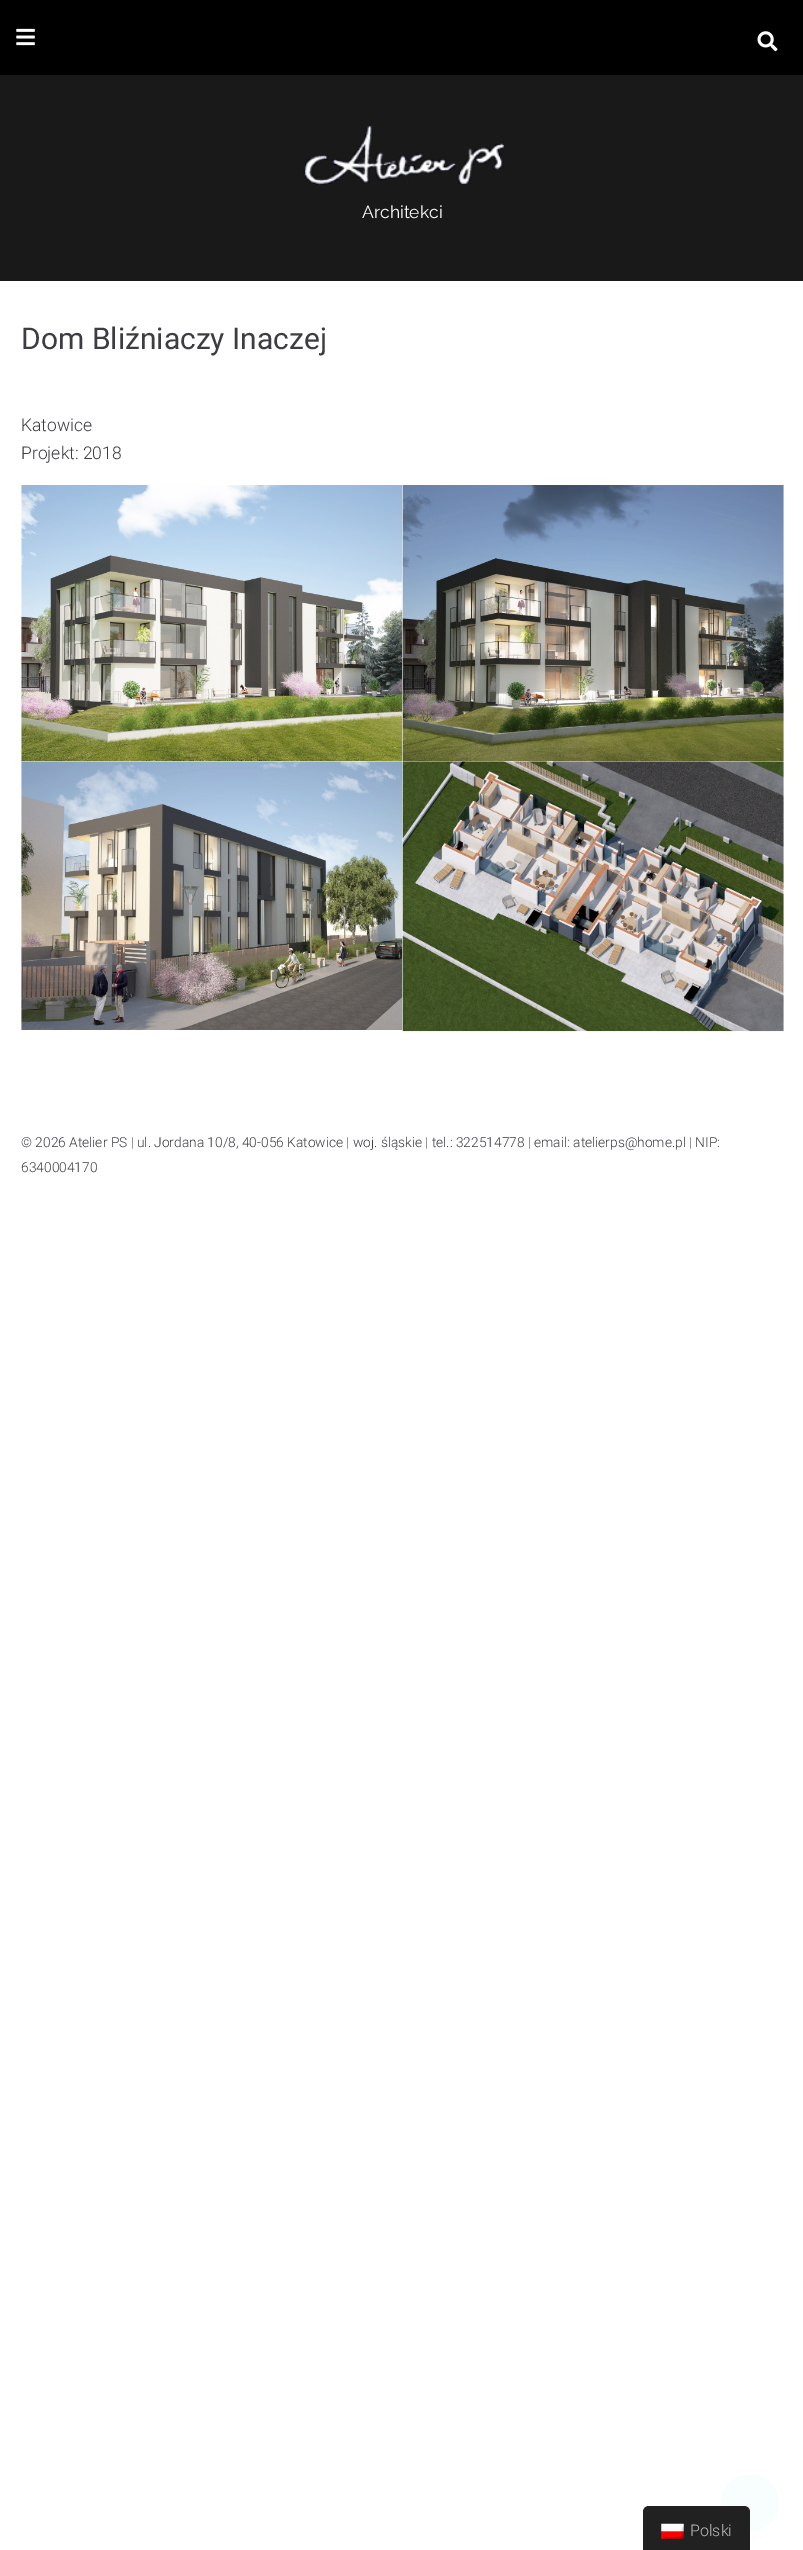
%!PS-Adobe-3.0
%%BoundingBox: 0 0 803 2550
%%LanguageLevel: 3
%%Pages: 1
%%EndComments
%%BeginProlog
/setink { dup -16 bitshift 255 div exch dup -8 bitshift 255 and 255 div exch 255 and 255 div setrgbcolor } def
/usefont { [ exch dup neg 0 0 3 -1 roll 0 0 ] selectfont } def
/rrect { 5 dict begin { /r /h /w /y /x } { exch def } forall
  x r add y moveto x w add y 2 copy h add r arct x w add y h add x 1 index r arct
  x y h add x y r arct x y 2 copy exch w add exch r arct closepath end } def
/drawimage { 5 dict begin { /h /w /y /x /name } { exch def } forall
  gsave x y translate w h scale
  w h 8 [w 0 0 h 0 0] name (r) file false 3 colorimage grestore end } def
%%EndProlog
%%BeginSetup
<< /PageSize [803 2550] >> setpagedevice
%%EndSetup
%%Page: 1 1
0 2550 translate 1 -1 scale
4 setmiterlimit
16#FFFFFF setink
0 0 803 2550 rectfill
16#000000 setink
0 0 803 75 rectfill
(img1.raw) 16 28 19 18 drawimage
(img2.raw) 757 31 21 21 drawimage
16#19191A setink
0 75 803 206 rectfill
(img3.raw) 303 126 201 59 drawimage
/Raleway-Regular 17.5 usefont
16#FFFFFF setink
362 218 moveto (Architekci) show
/Roboto-Regular 30 usefont
16#3B3D42 setink
21 349 moveto (Dom Bliźniaczy Inaczej) show
/Roboto-Light 17.5 usefont
21 431 moveto (Katowice) show
21 459 moveto (Projekt: 2018) show
(img4.raw) 21 485 382 277 drawimage
(img5.raw) 402 485 382 277 drawimage
(img6.raw) 21 761 382 269 drawimage
(img7.raw) 402 761 382 271 drawimage
/Roboto-Light 13.75 usefont
21 1147 moveto (© 2026 Atelier PS | ul. Jordana 10/8, 40-056 Katowice | woj. śląskie | tel.: 322514778 | email: atelierps@home.pl | NIP:) show
21 1172 moveto (6340004170) show
16#F8FDFE setink
721 2475 58 56 28 rrect fill
16#212121 setink
649 2506 moveto 744 2506 lineto 747.5 2506 750 2508.5 750 2512 curveto 750 2550 lineto 643 2550 lineto 643 2512 lineto 643 2508.5 645.5 2506 649 2506 curveto closepath fill
(img8.raw) 661 2523 23 16 drawimage
/Roboto-Light 16 usefont
16#BDBDBD setink
690 2536 moveto (Polski) show
showpage
%%EOF
